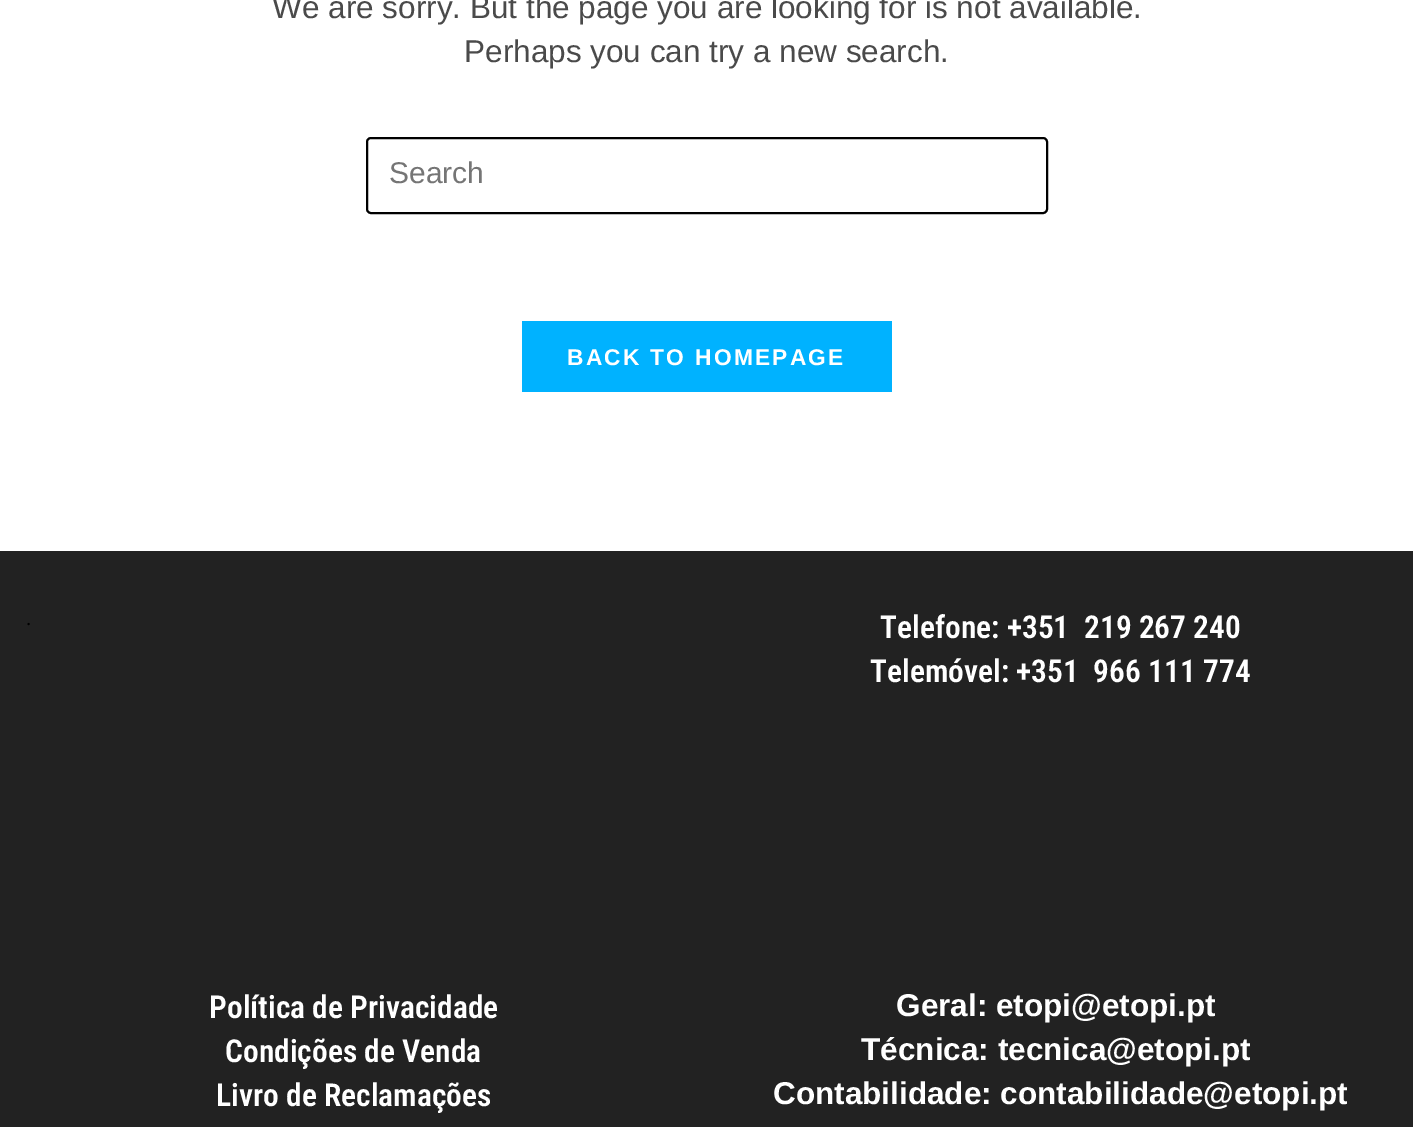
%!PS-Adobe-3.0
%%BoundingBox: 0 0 1413 1127
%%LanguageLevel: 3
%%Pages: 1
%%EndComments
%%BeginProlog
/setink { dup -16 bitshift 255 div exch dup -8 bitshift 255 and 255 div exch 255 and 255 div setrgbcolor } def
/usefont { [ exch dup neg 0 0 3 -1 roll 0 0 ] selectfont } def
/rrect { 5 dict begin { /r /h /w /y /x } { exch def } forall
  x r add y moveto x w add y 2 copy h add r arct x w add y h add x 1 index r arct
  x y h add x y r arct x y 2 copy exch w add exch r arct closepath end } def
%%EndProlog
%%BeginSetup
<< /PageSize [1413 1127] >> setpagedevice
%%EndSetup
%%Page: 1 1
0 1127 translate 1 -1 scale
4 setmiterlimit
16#FFFFFF setink
0 0 1413 1127 rectfill
/LiberationSans-Regular 31.5 usefont
16#4A4A4A setink
272 18 moveto (We are sorry. But the page you are looking for is not available.) show
464 62 moveto (Perhaps you can try a new search.) show
16#000000 setink
2 setlinewidth
367 138 680 75 4 rrect stroke
/LiberationSans-Regular 30 usefont
16#757575 setink
389 183 moveto (Search) show
16#00B2FF setink
522 321 370 71 rectfill
/LiberationSans-Bold 22.75 usefont
16#FFFFFF setink
567 365 moveto 2.25 0 (BACK TO HOMEPAGE) ashow
16#222222 setink
0 551 1413 576 rectfill
/RobotoCondensed-Regular 21 usefont
16#000000 setink
26 625 moveto (.) show
/RobotoCondensed-SemiBold 31.5 usefont
16#FFFFFF setink
[
    [(Telefone: +351  219 267 240) 880 638]
    [(Telemóvel: +351  966 111 774) 870 682]
    [(Política de Privacidade) 209 1018]
    [(Condições de Venda) 225 1062]
    [(Livro de Reclamações) 216 1106]
] { aload pop moveto show } forall
/LiberationSans-Bold 31.5 usefont
[
    [(Geral: etopi@etopi.pt) 896 1016]
    [(Técnica: tecnica@etopi.pt) 861 1060]
    [(Contabilidade: contabilidade@etopi.pt) 773 1104]
] { aload pop moveto show } forall
showpage
%%EOF
